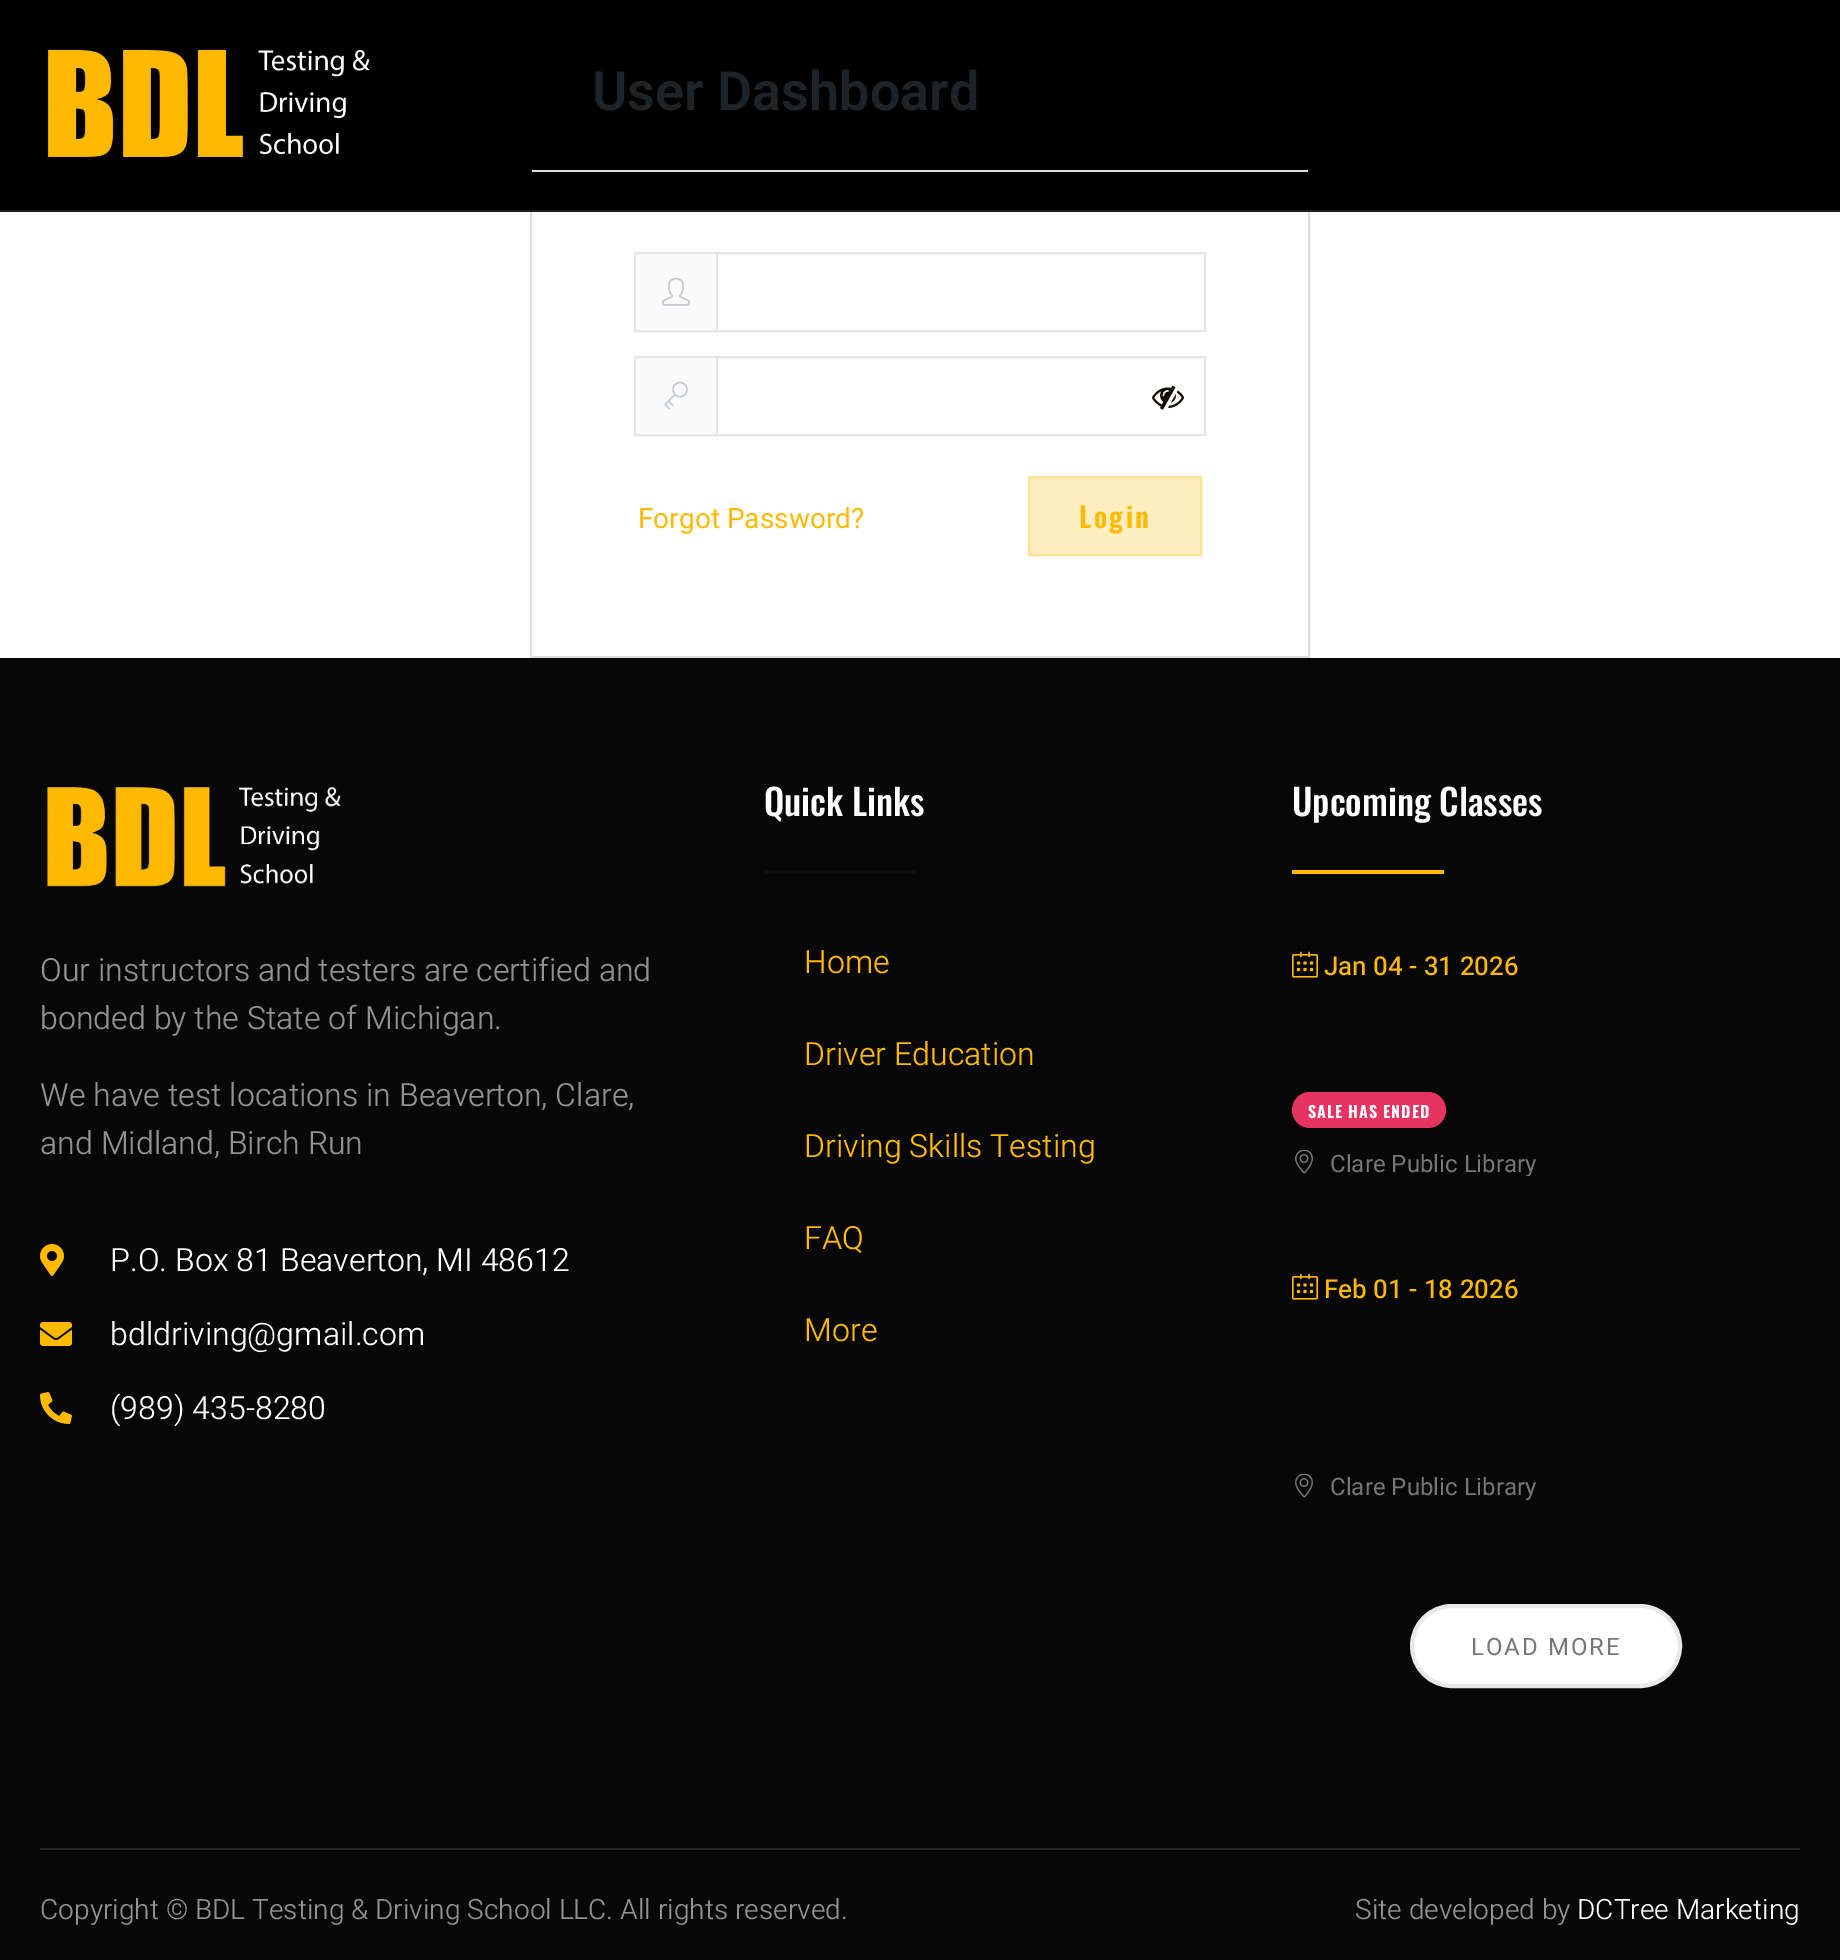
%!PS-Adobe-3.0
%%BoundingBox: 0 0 1840 1960
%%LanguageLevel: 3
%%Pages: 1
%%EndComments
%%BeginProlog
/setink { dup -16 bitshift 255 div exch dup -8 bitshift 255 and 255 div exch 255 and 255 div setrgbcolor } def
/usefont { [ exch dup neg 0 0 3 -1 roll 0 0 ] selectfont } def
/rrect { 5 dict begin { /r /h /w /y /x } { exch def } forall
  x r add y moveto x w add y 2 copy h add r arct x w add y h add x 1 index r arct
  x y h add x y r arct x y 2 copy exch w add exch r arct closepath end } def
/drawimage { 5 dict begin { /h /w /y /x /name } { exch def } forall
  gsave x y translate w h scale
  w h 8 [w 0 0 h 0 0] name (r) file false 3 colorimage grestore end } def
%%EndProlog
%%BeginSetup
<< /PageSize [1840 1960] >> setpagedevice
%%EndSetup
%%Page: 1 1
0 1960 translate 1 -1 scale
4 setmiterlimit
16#FFFFFF setink
0 0 1840 1960 rectfill
16#DCDFE1 setink
2 setlinewidth
531 13 778 644 rectstroke
16#000000 setink
0 0 1840 210 rectfill
16#1C1C1C setink
0 210 1840 2 rectfill
(img1.raw) 47 49 323 108 drawimage
16#DCDFE1 setink
532 170 776 2 rectfill
/Roboto-SemiBold 54 usefont
16#1D2327 setink
592 110 moveto (User Dashboard) show
16#E6E6E6 setink
635 253 570 78 rectstroke
16#FAFAFA setink
636 254 80 76 rectfill
(img2.raw) 662 277 28 29 drawimage
16#E6E6E6 setink
716 254 2 76 rectfill
635 357 570 78 rectstroke
16#FAFAFA setink
636 358 80 76 rectfill
(img3.raw) 664 381 24 29 drawimage
16#E6E6E6 setink
716 358 2 76 rectfill
(img4.raw) 1152 385 32 25 drawimage
/Heebo-Regular 28 usefont
16#FFBA00 setink
638 528 moveto (Forgot Password?) show
16#FCFCFC setink
1028 556 174 2 rectfill
16#FFEEC0 setink
1029 477 moveto 1201 477 lineto 1201 555 lineto 1029 555 lineto closepath gsave fill grestore
16#FFE190 setink
stroke
/Oswald-SemiBold 28 usefont
16#FFBA00 setink
1079 528 moveto 2.5 0 (Login) ashow
16#070707 setink
0 658 1840 1302 rectfill
(img5.raw) 47 787 294 100 drawimage
/Heebo-Light 32 usefont
16#929292 setink
[
    [(Our instructors and testers are certified and) 40 981]
    [(bonded by the State of Michigan.) 40 1029]
    [(We have test locations in Beaverton, Clare,) 40 1106]
    [(and Midland, Birch Run) 40 1154]
] { aload pop moveto show } forall
(img6.raw) 40 1244 24 32 drawimage
16#FFFFFF setink
110 1271 moveto (P.O. Box 81 Beaverton, MI 48612) show
(img7.raw) 40 1322 32 24 drawimage
110 1345 moveto (bdldriving@gmail.com) show
(img8.raw) 40 1392 32 32 drawimage
110 1419 moveto (\(989\) 435-8280) show
/Oswald-Medium 36 usefont
764 816 moveto (Quick Links) show
16#0C0D0E setink
764 870 152 4 rectfill
/Heebo-Light 32 usefont
16#FFBA00 setink
[
    [(Home) 804 973]
    [(Driver Education) 804 1065]
    [(Driving Skills Testing) 804 1157]
    [(FAQ) 804 1249]
    [(More) 804 1341]
] { aload pop moveto show } forall
/Oswald-Medium 36 usefont
16#FFFFFF setink
1292 816 moveto (Upcoming Classes) show
16#FFBA00 setink
1292 870 152 4 rectfill
(img9.raw) 1292 951 26 27 drawimage
/Heebo-Medium 26 usefont
1324 975 moveto (Jan 04 - 31 2026) show
16#E63360 setink
1292 1092 154 36 18 rrect fill
/Oswald-Bold 16 usefont
16#FFFFFF setink
1308 1118 moveto 1 0 (SALE HAS ENDED) ashow
(img10.raw) 1295 1150 18 24 drawimage
gsave
1292 1150 508 26 rectclip
/Heebo-Regular 24 usefont
16#777777 setink
1330 1172 moveto (Clare Public Library) show
grestore
(img9.raw) 1292 1273 26 27 drawimage
/Heebo-Medium 26 usefont
16#FFBA00 setink
1324 1298 moveto (Feb 01 - 18 2026) show
(img10.raw) 1295 1474 18 24 drawimage
/Heebo-Regular 24 usefont
16#777777 setink
1330 1495 moveto (Clare Public Library) show
16#FFFFFF setink
1412 1606 268 80 40 rrect gsave fill grestore
16#E8E8E8 setink
4 setlinewidth
stroke
16#777777 setink
1471 1655 moveto 2 0 (LOAD MORE) ashow
16#242424 setink
40 1848 1760 2 rectfill
/Heebo-Light 28 usefont
16#929292 setink
40 1919 moveto (Copyright © BDL Testing & Driving School LLC. All rights reserved.) show
1355 1919 moveto (Site developed by) show
16#FFFFFF setink
1577 1919 moveto (DCTree Marketing) show
showpage
%%EOF
